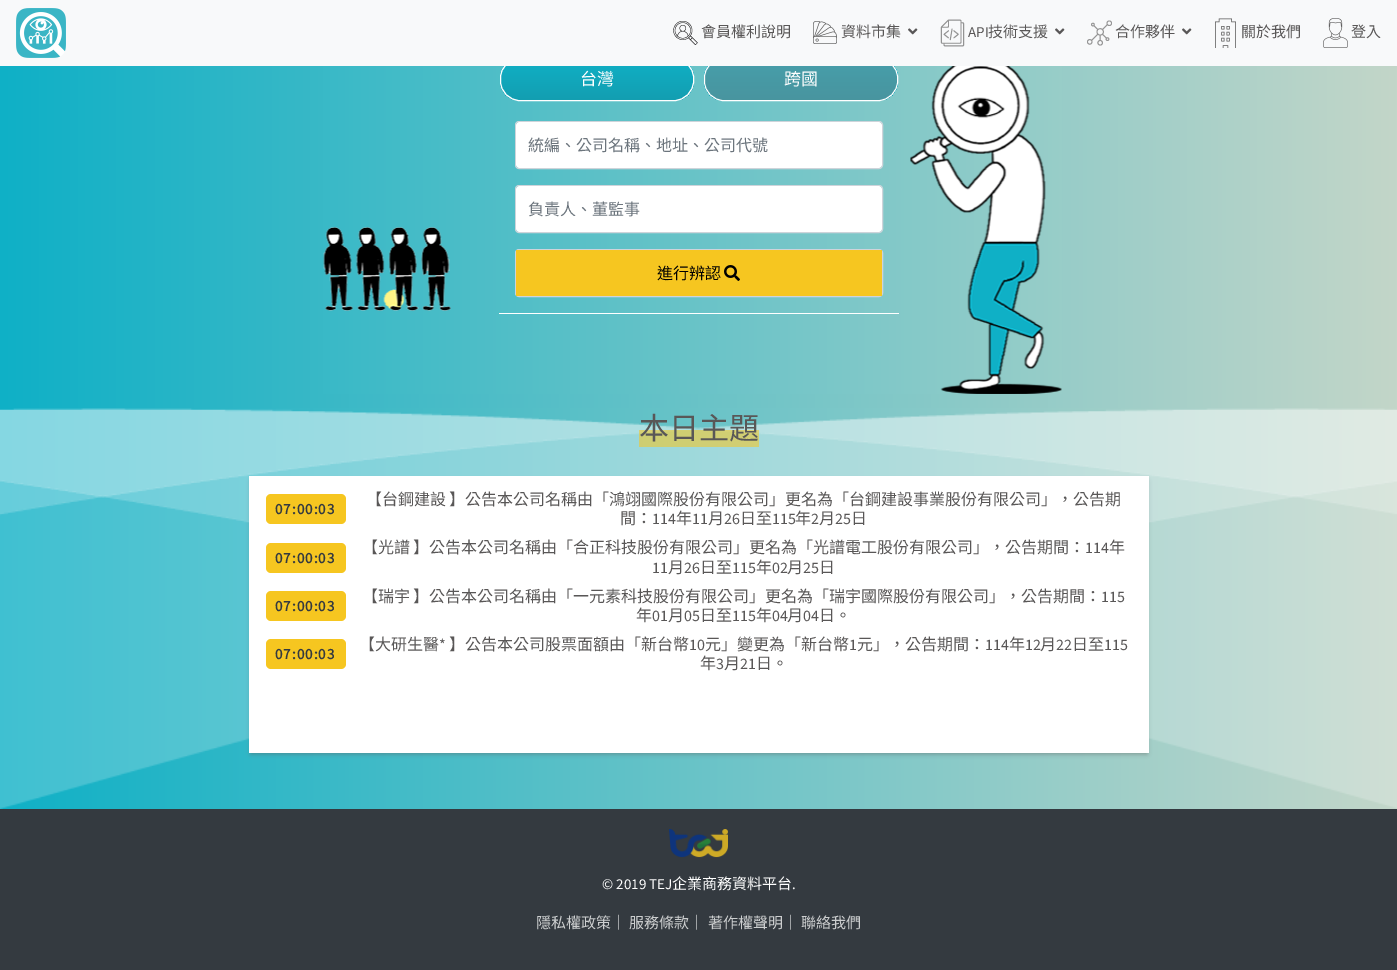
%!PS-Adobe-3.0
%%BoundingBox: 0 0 1397 970
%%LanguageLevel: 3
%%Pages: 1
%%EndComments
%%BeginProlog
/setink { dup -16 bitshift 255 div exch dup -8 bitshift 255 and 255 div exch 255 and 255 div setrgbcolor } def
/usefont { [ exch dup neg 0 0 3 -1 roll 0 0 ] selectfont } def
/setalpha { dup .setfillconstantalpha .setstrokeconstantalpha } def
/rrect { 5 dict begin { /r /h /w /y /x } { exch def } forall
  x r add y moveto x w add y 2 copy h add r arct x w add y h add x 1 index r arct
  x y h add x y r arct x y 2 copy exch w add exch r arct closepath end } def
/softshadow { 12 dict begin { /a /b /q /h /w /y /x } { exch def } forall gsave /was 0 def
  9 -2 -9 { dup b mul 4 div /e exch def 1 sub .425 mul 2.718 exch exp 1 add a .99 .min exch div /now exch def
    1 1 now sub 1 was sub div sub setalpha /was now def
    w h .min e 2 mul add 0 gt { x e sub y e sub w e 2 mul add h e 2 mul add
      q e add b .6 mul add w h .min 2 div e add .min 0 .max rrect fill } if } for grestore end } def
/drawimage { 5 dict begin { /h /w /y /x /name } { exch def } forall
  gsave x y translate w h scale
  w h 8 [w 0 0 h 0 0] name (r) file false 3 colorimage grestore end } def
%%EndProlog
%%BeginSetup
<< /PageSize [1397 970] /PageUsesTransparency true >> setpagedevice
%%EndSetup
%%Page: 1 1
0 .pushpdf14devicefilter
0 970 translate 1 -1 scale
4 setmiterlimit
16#FFFFFF setink
0 0 1397 970 rectfill
gsave 0 66 moveto 1397 66 lineto 1397 809 lineto 0 809 lineto closepath clip newpath
<< /ShadingType 2 /ColorSpace /DeviceRGB /Coords [0 216 1397 216] /Extend [true true] /Function << /FunctionType 2 /Domain [0 1] /C0 [0.059 0.69 0.776] /C1 [0.765 0.839 0.788] /N 1 >> >> shfill grestore
(img9.raw) 323 66 739 328 drawimage
gsave
500 58 194 43 20 rrect clip newpath
gsave 500 66 moveto 694 66 lineto 694 100 lineto 500 100 lineto closepath clip newpath
<< /ShadingType 2 /ColorSpace /DeviceRGB /Coords [597 59 597 100] /Extend [true true] /Function << /FunctionType 2 /Domain [0 1] /C0 [0.059 0.69 0.776] /C1 [0.075 0.62 0.694] /N 1 >> >> shfill grestore
grestore
500.5 58.5 193 42 19.5 rrect stroke
gsave
704 58 194 43 20 rrect clip newpath
gsave 704 66 moveto 898 66 lineto 898 100 lineto 704 100 lineto closepath clip newpath
<< /ShadingType 2 /ColorSpace /DeviceRGB /Coords [801 59 801 100] /Extend [true true] /Function << /FunctionType 2 /Domain [0 1] /C0 [0.059 0.69 0.776] /C1 [0.075 0.62 0.694] /N 1 >> >> shfill grestore
grestore
704.5 58.5 193 42 19.5 rrect stroke
0.45 setalpha
16#898989 setink
705 59 192 41 20 rrect fill
1 setalpha
16#F8F9FA setink
0 0 1397 66 rectfill
(img1.raw) 16 8 50 50 drawimage
(img2.raw) 673 21 25 24 drawimage
/NotoSansTC-Thin 15 usefont
16#595757 setink
701 37 moveto (會員權利說明) show
(img3.raw) 813 21 24 23 drawimage
841 37 moveto (資料市集) show
(img4.raw) 908 28 10 7 drawimage
(img5.raw) 940 19 25 28 drawimage
/SourceSansPro-Regular 15 usefont
968 37 moveto (API) show
/NotoSansTC-Thin 15 usefont
988 37 moveto (技術支援) show
(img4.raw) 1055 28 10 7 drawimage
(img6.raw) 1087 20 25 26 drawimage
1115 37 moveto (合作夥伴) show
(img4.raw) 1182 28 10 7 drawimage
(img7.raw) 1215 18 21 30 drawimage
1241 37 moveto (關於我們) show
(img8.raw) 1323 18 25 30 drawimage
1351 37 moveto (登入) show
16#FFFFFF setink
499 313 400 1 rectfill
/NotoSansTC-Thin 17 usefont
580 85 moveto (台灣) show
784 85 moveto (跨國) show
16#CED4DA setink
515.5 121.5 367 47 3.5 rrect stroke
16#FFFFFF setink
516 122 366 46 4 rrect fill
/NotoSansTC-Thin 16 usefont
16#6C757D setink
528 151 moveto (統編、公司名稱、地址、公司代號) show
16#CED4DA setink
515.5 185.5 367 47 3.5 rrect stroke
16#FFFFFF setink
516 186 366 46 4 rrect fill
16#6C757D setink
528 215 moveto (負責人、董監事) show
16#CED4DA setink
515.5 249.5 367 47 3.5 rrect stroke
16#F6C620 setink
516 250 366 46 rectfill
16#000000 setink
657 279 moveto (進行辨認) show
(img10.raw) 724 265 16 16 drawimage
(img11.raw) 0 408 1397 401 drawimage
0.56 setalpha
16#F6C620 setink
639 430 120 17 rectfill
/NotoSansTC-Thin 30 usefont
1 setalpha
16#595757 setink
639 439 moveto (本日主題) show
16#5E5E5E setink
251 481 896 273 0 2.5 0.5 softshadow
16#FFFFFF setink
249 476 900 277 rectfill
16#F6C620 setink
266 494 80 30 5 rrect fill
/SourceSansPro-Bold 15 usefont
16#343A40 setink
275 514 moveto 1 0 (07:00:03) ashow
/NotoSansTC-Thin 16 usefont
16#595757 setink
[
    [(【台鋼建設) 366 505]
    [(】公告本公司名稱由「鴻翊國際股份有限公司」更名為「台鋼建設事業股份有限公司」，公告期) 449 505]
    [(間：) 620 524]
] { aload pop moveto show } forall
/SourceSansPro-Regular 16 usefont
652 524 moveto (114) show
/NotoSansTC-Thin 16 usefont
676 524 moveto (年) show
/SourceSansPro-Regular 16 usefont
692 524 moveto (11) show
/NotoSansTC-Thin 16 usefont
708 524 moveto (月) show
/SourceSansPro-Regular 16 usefont
724 524 moveto (26) show
/NotoSansTC-Thin 16 usefont
740 524 moveto (日至) show
/SourceSansPro-Regular 16 usefont
772 524 moveto (115) show
/NotoSansTC-Thin 16 usefont
795 524 moveto (年) show
/SourceSansPro-Regular 16 usefont
811 524 moveto (2) show
/NotoSansTC-Thin 16 usefont
819 524 moveto (月) show
/SourceSansPro-Regular 16 usefont
835 524 moveto (25) show
/NotoSansTC-Thin 16 usefont
851 524 moveto (日) show
16#F6C620 setink
266 543 80 30 5 rrect fill
/SourceSansPro-Bold 15 usefont
16#343A40 setink
275 563 moveto 1 0 (07:00:03) ashow
/NotoSansTC-Thin 16 usefont
16#595757 setink
362 553 moveto (【光譜) show
413 553 moveto (】公告本公司名稱由「合正科技股份有限公司」更名為「光譜電工股份有限公司」，公告期間：) show
/SourceSansPro-Regular 16 usefont
1085 553 moveto (114) show
/NotoSansTC-Thin 16 usefont
1109 553 moveto (年) show
/SourceSansPro-Regular 16 usefont
652 573 moveto (11) show
/NotoSansTC-Thin 16 usefont
668 573 moveto (月) show
/SourceSansPro-Regular 16 usefont
684 573 moveto (26) show
/NotoSansTC-Thin 16 usefont
700 573 moveto (日至) show
/SourceSansPro-Regular 16 usefont
732 573 moveto (115) show
/NotoSansTC-Thin 16 usefont
756 573 moveto (年) show
/SourceSansPro-Regular 16 usefont
772 573 moveto (02) show
/NotoSansTC-Thin 16 usefont
787 573 moveto (月) show
/SourceSansPro-Regular 16 usefont
803 573 moveto (25) show
/NotoSansTC-Thin 16 usefont
819 573 moveto (日) show
16#F6C620 setink
266 591 80 30 5 rrect fill
/SourceSansPro-Bold 15 usefont
16#343A40 setink
275 611 moveto 1 0 (07:00:03) ashow
/NotoSansTC-Thin 16 usefont
16#595757 setink
362 602 moveto (【瑞宇) show
413 602 moveto (】公告本公司名稱由「一元素科技股份有限公司」更名為「瑞宇國際股份有限公司」，公告期間：) show
/SourceSansPro-Regular 16 usefont
1101 602 moveto (115) show
/NotoSansTC-Thin 16 usefont
636 621 moveto (年) show
/SourceSansPro-Regular 16 usefont
652 621 moveto (01) show
/NotoSansTC-Thin 16 usefont
668 621 moveto (月) show
/SourceSansPro-Regular 16 usefont
684 621 moveto (05) show
/NotoSansTC-Thin 16 usefont
700 621 moveto (日至) show
/SourceSansPro-Regular 16 usefont
732 621 moveto (115) show
/NotoSansTC-Thin 16 usefont
756 621 moveto (年) show
/SourceSansPro-Regular 16 usefont
772 621 moveto (04) show
/NotoSansTC-Thin 16 usefont
787 621 moveto (月) show
/SourceSansPro-Regular 16 usefont
803 621 moveto (04) show
/NotoSansTC-Thin 16 usefont
819 621 moveto (日。) show
16#F6C620 setink
266 639 80 30 5 rrect fill
/SourceSansPro-Bold 15 usefont
16#343A40 setink
275 659 moveto 1 0 (07:00:03) ashow
/NotoSansTC-Thin 16 usefont
16#595757 setink
359 650 moveto (【大研生醫) show
/SourceSansPro-Regular 16 usefont
439 650 moveto (*) show
/NotoSansTC-Thin 16 usefont
449 650 moveto (】公告本公司股票面額由「新台幣) show
/SourceSansPro-Regular 16 usefont
689 650 moveto (10) show
/NotoSansTC-Thin 16 usefont
705 650 moveto (元」變更為「新台幣) show
/SourceSansPro-Regular 16 usefont
849 650 moveto (1) show
/NotoSansTC-Thin 16 usefont
857 650 moveto (元」，公告期間：) show
/SourceSansPro-Regular 16 usefont
985 650 moveto (114) show
/NotoSansTC-Thin 16 usefont
1009 650 moveto (年) show
/SourceSansPro-Regular 16 usefont
1025 650 moveto (12) show
/NotoSansTC-Thin 16 usefont
1040 650 moveto (月) show
/SourceSansPro-Regular 16 usefont
1056 650 moveto (22) show
/NotoSansTC-Thin 16 usefont
1072 650 moveto (日至) show
/SourceSansPro-Regular 16 usefont
1104 650 moveto (115) show
/NotoSansTC-Thin 16 usefont
700 669 moveto (年) show
/SourceSansPro-Regular 16 usefont
716 669 moveto (3) show
/NotoSansTC-Thin 16 usefont
724 669 moveto (月) show
/SourceSansPro-Regular 16 usefont
740 669 moveto (21) show
/NotoSansTC-Thin 16 usefont
756 669 moveto (日。) show
16#343A40 setink
0 809 1397 161 rectfill
(img12.raw) 669 829 59 29 drawimage
/SourceSansPro-Regular 15 usefont
16#FFFFFF setink
602 889 moveto (© 2019 TEJ) show
/NotoSansTC-Thin 15 usefont
672 889 moveto (企業商務資料平台) show
/SourceSansPro-Regular 15 usefont
792 889 moveto (.) show
/NotoSansTC-Thin 15 usefont
16#CCCECF setink
536 928 moveto (隱私權政策) show
16#FFFFFF setink
611 928 moveto (│) show
16#CCCECF setink
629 928 moveto (服務條款) show
16#FFFFFF setink
689 928 moveto (│) show
16#CCCECF setink
708 928 moveto (著作權聲明) show
16#FFFFFF setink
783 928 moveto (│) show
16#CCCECF setink
801 928 moveto (聯絡我們) show
.poppdf14devicefilter showpage
%%EOF
